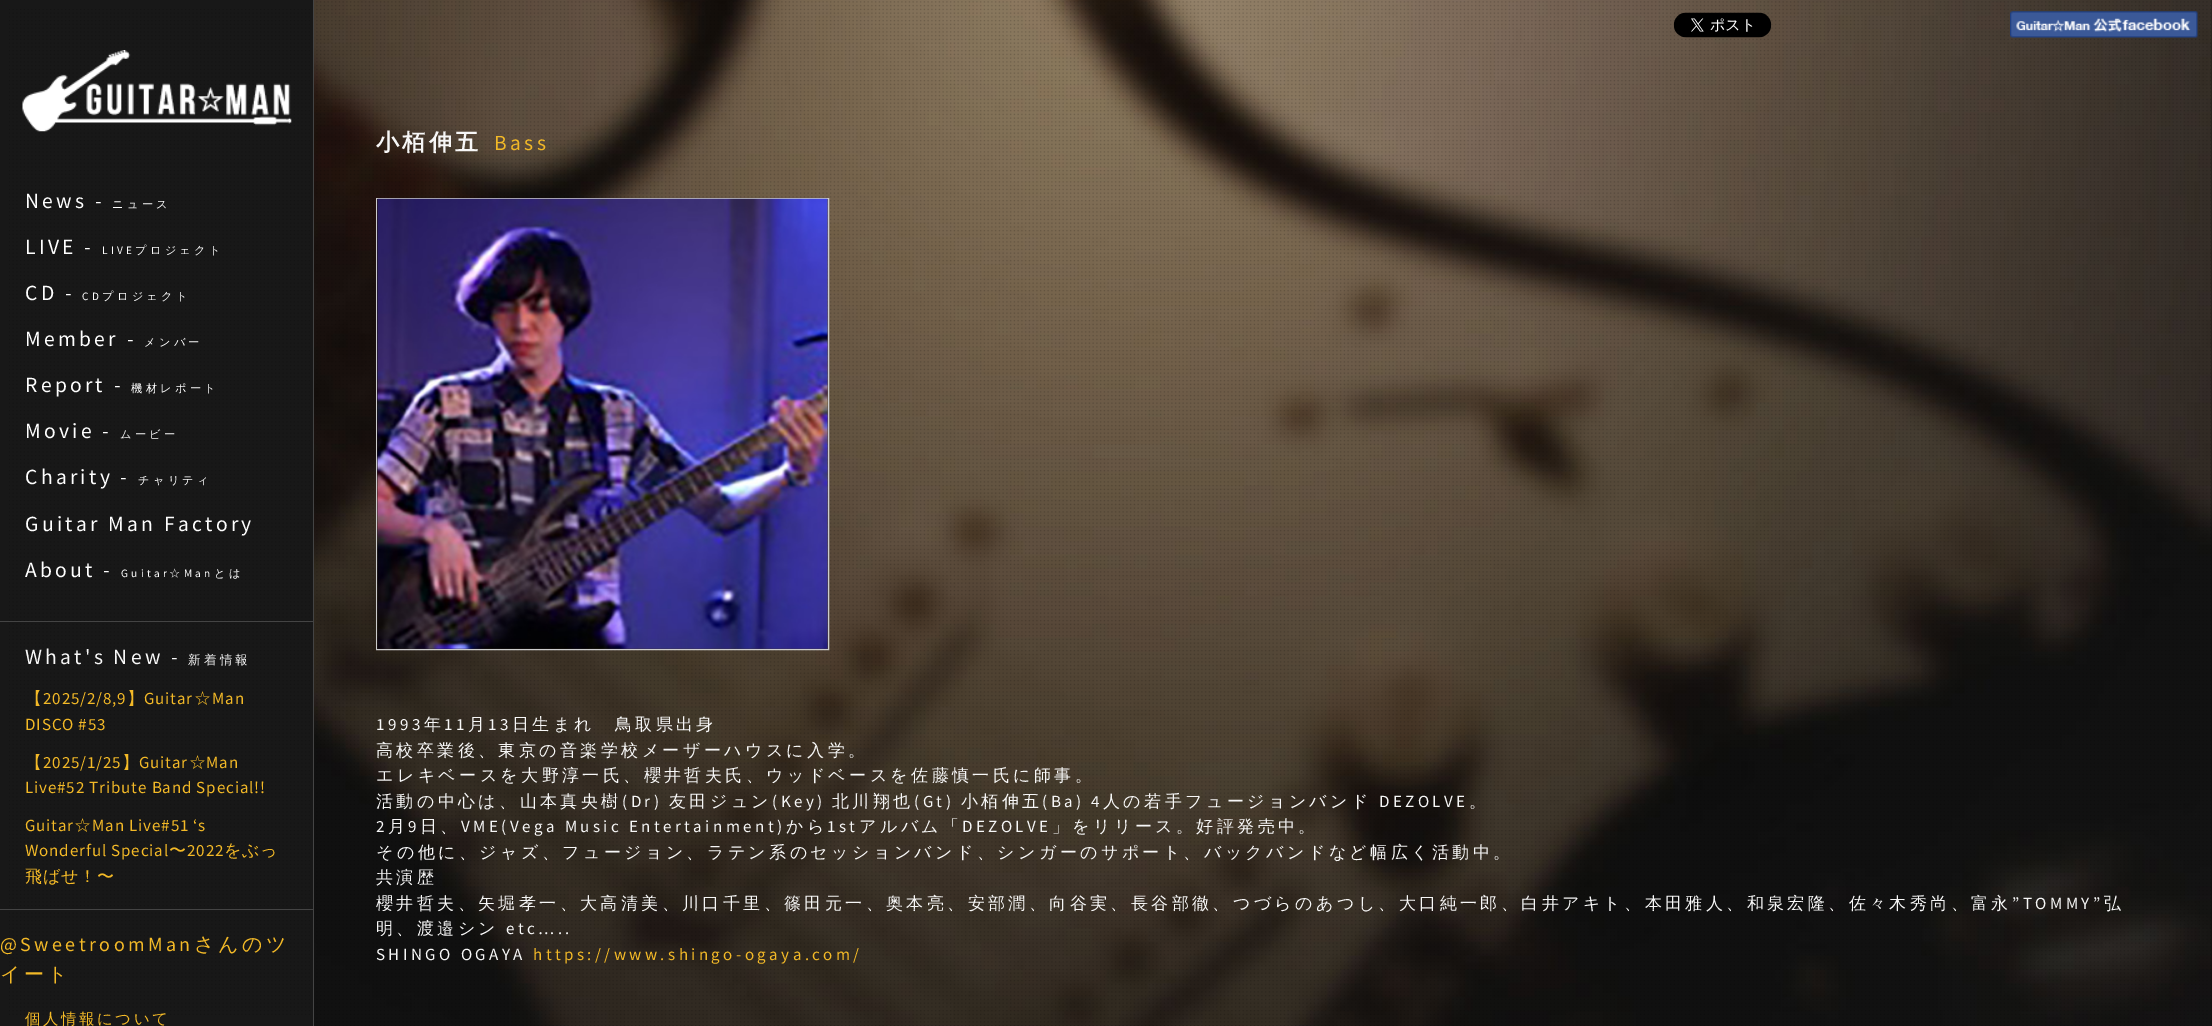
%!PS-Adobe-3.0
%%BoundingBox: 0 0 2212 1026
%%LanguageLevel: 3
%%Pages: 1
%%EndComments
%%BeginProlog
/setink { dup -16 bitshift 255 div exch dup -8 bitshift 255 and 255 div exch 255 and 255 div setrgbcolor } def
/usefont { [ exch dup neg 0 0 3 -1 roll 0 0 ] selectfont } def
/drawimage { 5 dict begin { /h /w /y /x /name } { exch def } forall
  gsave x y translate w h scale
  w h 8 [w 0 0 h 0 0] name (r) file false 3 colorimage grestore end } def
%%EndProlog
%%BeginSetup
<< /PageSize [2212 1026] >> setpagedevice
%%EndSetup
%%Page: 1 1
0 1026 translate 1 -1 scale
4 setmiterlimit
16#FFFFFF setink
0 0 2212 1026 rectfill
(img1.raw) 314 0 1898 1026 drawimage
(img2.raw) 316 1 1895 1025 drawimage
16#181818 setink
0 0 313 1026 rectfill
(img3.raw) 9 9 301 1006 drawimage
16#444444 setink
313 0 1 1026 rectfill
(img4.raw) 22 50 270 82 drawimage
/SourceSansPro-Regular 21.6 usefont
16#FFFFFF setink
25 208 moveto 3.25 0 (News -) ashow
/WenQuanYiZenHei-Medium 11.25 usefont
112 208 moveto 3.25 0 (ニュース) ashow
/SourceSansPro-Regular 21.6 usefont
25 254 moveto 3.25 0 (LIVE -) ashow
/SourceSansPro-Regular 11.25 usefont
102 254 moveto 3.25 0 (LIVE) ashow
/WenQuanYiZenHei-Medium 11.25 usefont
135 254 moveto 3.25 0 (プロジェクト) ashow
/SourceSansPro-Regular 21.6 usefont
25 300 moveto 3.25 0 (CD -) ashow
/SourceSansPro-Regular 11.25 usefont
82 300 moveto 3.25 0 (CD) ashow
/WenQuanYiZenHei-Medium 11.25 usefont
102 300 moveto 3.25 0 (プロジェクト) ashow
/SourceSansPro-Regular 21.6 usefont
25 346 moveto 3.25 0 (Member -) ashow
/WenQuanYiZenHei-Medium 11.25 usefont
144 346 moveto 3.25 0 (メンバー) ashow
/SourceSansPro-Regular 21.6 usefont
25 392 moveto 3.25 0 (Report -) ashow
/WenQuanYiZenHei-Medium 11.25 usefont
131 392 moveto 3.25 0 (機材レポート) ashow
/SourceSansPro-Regular 21.6 usefont
25 438 moveto 3.25 0 (Movie -) ashow
/WenQuanYiZenHei-Medium 11.25 usefont
120 438 moveto 3.25 0 (ムービー) ashow
/SourceSansPro-Regular 21.6 usefont
25 484 moveto 3.25 0 (Charity -) ashow
/WenQuanYiZenHei-Medium 11.25 usefont
138 484 moveto 3.25 0 (チャリティ) ashow
/SourceSansPro-Regular 21.6 usefont
25 531 moveto 3.25 0 (Guitar Man Factory) ashow
25 577 moveto 3.25 0 (About -) ashow
/SourceSansPro-Regular 11.25 usefont
121 577 moveto 3.25 0 (Guitar) ashow
/WenQuanYiZenHei-Medium 11.25 usefont
169 577 moveto 3.25 0 (☆) ashow
/SourceSansPro-Regular 11.25 usefont
184 577 moveto 3.25 0 (Man) ashow
/WenQuanYiZenHei-Medium 11.25 usefont
214 577 moveto 3.25 0 (とは) ashow
16#444444 setink
0 621 313 1 rectfill
0 909 313 1 rectfill
/SourceSansPro-Regular 21.6 usefont
16#F7F7F7 setink
25 664 moveto 3.25 0 (What's New -) ashow
/WenQuanYiZenHei-Medium 12.5 usefont
188 664 moveto 3.25 0 (新着情報) ashow
/WenQuanYiZenHei-Medium 17 usefont
16#F3B927 setink
25 704 moveto 0.85 0 (【) ashow
/SourceSansPro-Regular 17 usefont
43 704 moveto 0.85 0 (2025/2/8,9) ashow
/WenQuanYiZenHei-Medium 17 usefont
127 704 moveto 0.85 0 (】) ashow
/SourceSansPro-Regular 17 usefont
144 704 moveto 0.85 0 (Guitar) ashow
/WenQuanYiZenHei-Medium 17 usefont
194 704 moveto 0.85 0 (☆) ashow
/SourceSansPro-Regular 17 usefont
212 704 moveto 0.85 0 (Man) ashow
25 730 moveto 0.85 0 (DISCO #53) ashow
/WenQuanYiZenHei-Medium 17 usefont
25 768 moveto 0.85 0 (【) ashow
/SourceSansPro-Regular 17 usefont
43 768 moveto 0.85 0 (2025/1/25) ashow
/WenQuanYiZenHei-Medium 17 usefont
122 768 moveto 0.85 0 (】) ashow
/SourceSansPro-Regular 17 usefont
139 768 moveto 0.85 0 (Guitar) ashow
/WenQuanYiZenHei-Medium 17 usefont
189 768 moveto 0.85 0 (☆) ashow
/SourceSansPro-Regular 17 usefont
206 768 moveto 0.85 0 (Man) ashow
25 793 moveto 0.85 0 (Live#52 Tribute Band Special!!) ashow
25 831 moveto 0.85 0 (Guitar) ashow
/WenQuanYiZenHei-Medium 17 usefont
74 831 moveto 0.85 0 (☆) ashow
/SourceSansPro-Regular 17 usefont
92 831 moveto 0.85 0 (Man Live#51 ‘s) ashow
25 856 moveto 0.85 0 (Wonderful Special) ashow
/WenQuanYiZenHei-Medium 17 usefont
169 856 moveto 0.85 0 (〜) ashow
/SourceSansPro-Regular 17 usefont
187 856 moveto 0.85 0 (2022) ashow
/WenQuanYiZenHei-Medium 17 usefont
224 856 moveto 0.85 0 (をぶっ) ashow
25 882 moveto 0.85 0 (飛ばせ！〜) ashow
/SourceSansPro-Regular 20 usefont
0 951 moveto 3.4 0 (@SweetroomMan) ashow
/WenQuanYiZenHei-Medium 20 usefont
194 951 moveto 3.4 0 (さんのツ) ashow
0 981 moveto 3.4 0 (イート) ashow
/WenQuanYiZenHei-Medium 15.5 usefont
25 1024 moveto 2.5 0 (個人情報について) ashow
(img5.raw) 1673 12 99 26 drawimage
(img6.raw) 2010 11 188 27 drawimage
/WenQuanYiZenHei-Bold 23 usefont
16#F7F7F7 setink
376 150 moveto 3.4 0 (小栢伸五) ashow
/SourceSansPro-Regular 21.5 usefont
16#F3B927 setink
494 150 moveto 3.5 0 (Bass) ashow
16#CCCCCC setink
376.5 198.5 452 451 rectstroke
(img7.raw) 377 198 451 451 drawimage
/SourceSansPro-Regular 17 usefont
16#F7F7F7 setink
376 730 moveto 3.4 0 (1993) ashow
/WenQuanYiZenHei-Medium 17 usefont
424 730 moveto 3.4 0 (年) ashow
/SourceSansPro-Regular 17 usefont
444 730 moveto 3.4 0 (11) ashow
/WenQuanYiZenHei-Medium 17 usefont
468 730 moveto 3.4 0 (月) ashow
/SourceSansPro-Regular 17 usefont
488 730 moveto 3.4 0 (13) ashow
/WenQuanYiZenHei-Medium 17 usefont
512 730 moveto 3.4 0 (日生まれ　鳥取県出身) ashow
376 756 moveto 3.4 0 (高校卒業後、東京の音楽学校メーザーハウスに入学。) ashow
376 781 moveto 3.4 0 (エレキベースを大野淳一氏、櫻井哲夫氏、ウッドベースを佐藤慎一氏に師事。) ashow
376 807 moveto 3.4 0 (活動の中心は、山本真央樹) ashow
/SourceSansPro-Regular 17 usefont
622 807 moveto 3.4 0 (\(Dr\)) ashow
/WenQuanYiZenHei-Medium 17 usefont
669 807 moveto 3.4 0 (友田ジュン) ashow
/SourceSansPro-Regular 17 usefont
772 807 moveto 3.4 0 (\(Key\)) ashow
/WenQuanYiZenHei-Medium 17 usefont
832 807 moveto 3.4 0 (北川翔也) ashow
/SourceSansPro-Regular 17 usefont
914 807 moveto 3.4 0 (\(Gt\)) ashow
/WenQuanYiZenHei-Medium 17 usefont
961 807 moveto 3.4 0 (小栢伸五) ashow
/SourceSansPro-Regular 17 usefont
1042 807 moveto 3.4 0 (\(Ba\) 4) ashow
/WenQuanYiZenHei-Medium 17 usefont
1103 807 moveto 3.4 0 (人の若手フュージョンバンド) ashow
/SourceSansPro-Regular 17 usefont
1379 807 moveto 3.4 0 (DEZOLVE) ashow
/WenQuanYiZenHei-Medium 17 usefont
1469 807 moveto 3.4 0 (。) ashow
/SourceSansPro-Regular 17 usefont
376 832 moveto 3.4 0 (2) ashow
/WenQuanYiZenHei-Medium 17 usefont
388 832 moveto 3.4 0 (月) ashow
/SourceSansPro-Regular 17 usefont
408 832 moveto 3.4 0 (9) ashow
/WenQuanYiZenHei-Medium 17 usefont
420 832 moveto 3.4 0 (日、) ashow
/SourceSansPro-Regular 17 usefont
461 832 moveto 3.4 0 (VME\(Vega Music Entertainment\)) ashow
/WenQuanYiZenHei-Medium 17 usefont
786 832 moveto 3.4 0 (から) ashow
/SourceSansPro-Regular 17 usefont
827 832 moveto 3.4 0 (1st) ashow
/WenQuanYiZenHei-Medium 17 usefont
859 832 moveto 3.4 0 (アルバム「) ashow
/SourceSansPro-Regular 17 usefont
962 832 moveto 3.4 0 (DEZOLVE) ashow
/WenQuanYiZenHei-Medium 17 usefont
1052 832 moveto 3.4 0 (」をリリース。好評発売中。) ashow
376 858 moveto 3.4 0 (その他に、ジャズ、フュージョン、ラテン系のセッションバンド、シンガーのサポート、バックバンドなど幅広く活動中。) ashow
376 883 moveto 3.4 0 (共演歴) ashow
376 909 moveto 3.4 0 (櫻井哲夫、矢堀孝一、大高清美、川口千里、篠田元一、奥本亮、安部潤、向谷実、長谷部徹、つづらのあつし、大口純一郎、白井アキト、本田雅人、和泉宏隆、佐々木秀尚、富永) ashow
/SourceSansPro-Regular 17 usefont
2012 909 moveto 3.4 0 (”TOMMY”) ashow
/WenQuanYiZenHei-Medium 17 usefont
2104 909 moveto 3.4 0 (弘) ashow
376 934 moveto 3.4 0 (明、渡邉シン) ashow
/SourceSansPro-Regular 17 usefont
506 934 moveto 3.4 0 (etc…..) ashow
376 960 moveto 3.4 0 (SHINGO OGAYA) ashow
16#F3B927 setink
533 960 moveto 3.4 0 (https://www.shingo-ogaya.com/) ashow
showpage
%%EOF
